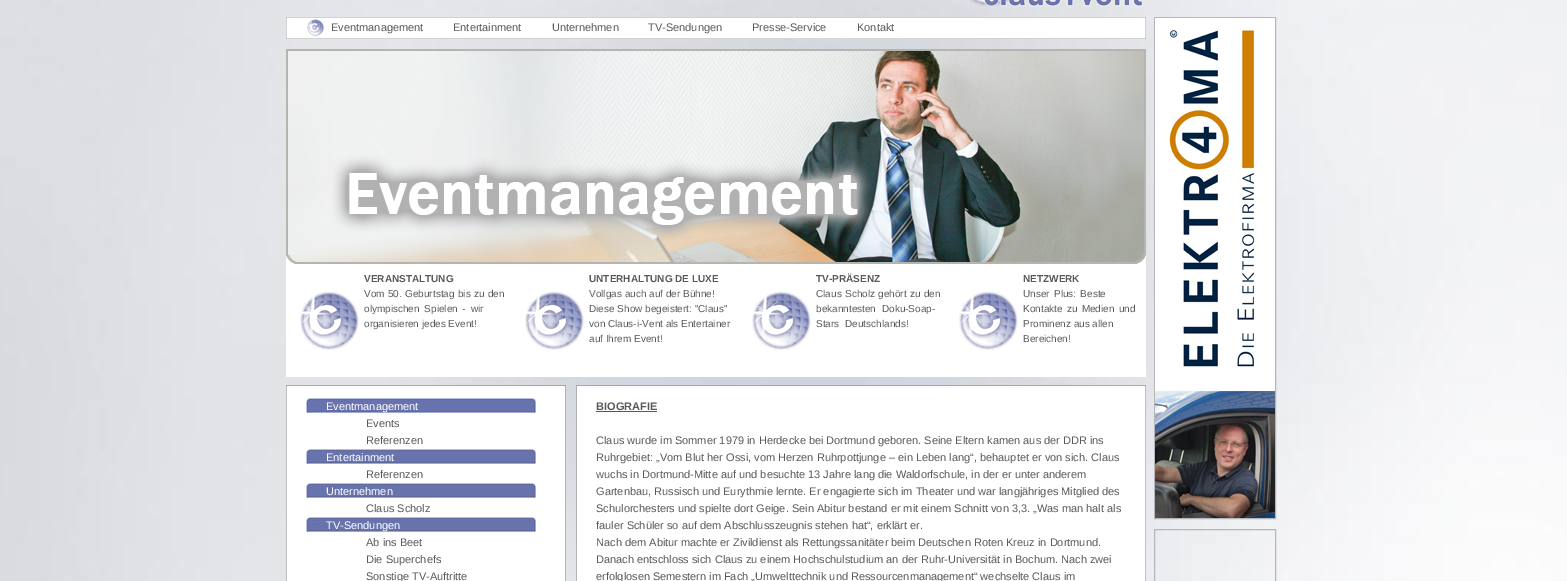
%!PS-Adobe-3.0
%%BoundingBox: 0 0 1567 581
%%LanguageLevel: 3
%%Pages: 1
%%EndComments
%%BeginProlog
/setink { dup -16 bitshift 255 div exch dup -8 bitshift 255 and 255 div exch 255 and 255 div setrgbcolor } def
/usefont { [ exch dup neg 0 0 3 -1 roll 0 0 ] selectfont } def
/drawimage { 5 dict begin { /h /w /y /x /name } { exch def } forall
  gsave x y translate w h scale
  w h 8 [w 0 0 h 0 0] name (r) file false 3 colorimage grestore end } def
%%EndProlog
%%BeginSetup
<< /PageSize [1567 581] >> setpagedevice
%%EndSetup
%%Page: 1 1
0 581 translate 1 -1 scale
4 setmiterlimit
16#FFFFFF setink
0 0 1567 581 rectfill
(img1.raw) 0 0 1567 581 drawimage
(img2.raw) 969 0 174 7 drawimage
(img3.raw) 286 17 860 22 drawimage
/LiberationSans-Regular 11 usefont
16#58595B setink
[
    [(Eventmanagement) 331 31]
    [(Entertainment) 453 31]
    [(Unternehmen) 552 31]
    [(TV-Sendungen) 648 31]
    [(Presse-Service) 752 31]
    [(Kontakt) 857 31]
] { aload pop moveto show } forall
(img4.raw) 286 49 860 215 drawimage
16#FFFFFF setink
286 264 860 113 rectfill
(img5.raw) 300 291 59 59 drawimage
/LiberationSans-Bold 10 usefont
16#58595B setink
364 282 moveto (VERANSTALTUNG) show
/LiberationSans-Regular 10 usefont
364 297 moveto 0.5 0 32 (Vom 50. Geburtstag bis zu den) widthshow
364 312 moveto 2 0 32 (olympischen Spielen - wir) widthshow
364 327 moveto (organisieren jedes Event!) show
(img5.raw) 525 291 59 59 drawimage
/LiberationSans-Bold 10 usefont
589 282 moveto (UNTERHALTUNG DE LUXE) show
/LiberationSans-Regular 10 usefont
[
    [(Vollgas auch auf der Bühne!) 589 297]
    [(Diese Show begeistert: "Claus") 589 312]
    [(von Claus-i-Vent als Entertainer) 589 327]
    [(auf Ihrem Event!) 589 342]
] { aload pop moveto show } forall
(img5.raw) 752 291 59 59 drawimage
/LiberationSans-Bold 10 usefont
816 282 moveto (TV-PRÄSENZ) show
/LiberationSans-Regular 10 usefont
816 297 moveto 0.5 0 32 (Claus Scholz gehört zu den) widthshow
816 312 moveto 3 0 32 (bekanntesten Doku-Soap-) widthshow
816 327 moveto 3 0 32 (Stars Deutschlands!) widthshow
(img5.raw) 959 291 59 59 drawimage
/LiberationSans-Bold 10 usefont
1023 282 moveto (NETZWERK) show
/LiberationSans-Regular 10 usefont
1023 297 moveto 1.5 0 32 (Unser Plus: Beste) widthshow
1023 312 moveto 1.5 0 32 (Kontakte zu Medien und) widthshow
1023 327 moveto (Prominenz aus allen) show
1023 342 moveto (Bereichen!) show
(img6.raw) 286 385 860 3 drawimage
(img7.raw) 286 388 860 193 drawimage
(img8.raw) 306 398 230 15 drawimage
/LiberationSans-Regular 11 usefont
16#FFFFFF setink
326 410 moveto (Eventmanagement) show
16#58595B setink
366 427 moveto (Events) show
366 444 moveto (Referenzen) show
(img8.raw) 306 449 230 15 drawimage
16#FFFFFF setink
326 461 moveto (Entertainment) show
16#58595B setink
366 478 moveto (Referenzen) show
(img8.raw) 306 483 230 15 drawimage
16#FFFFFF setink
326 495 moveto (Unternehmen) show
16#58595B setink
366 512 moveto (Claus Scholz) show
(img8.raw) 306 517 230 15 drawimage
16#FFFFFF setink
326 529 moveto (TV-Sendungen) show
16#58595B setink
[
    [(Ab ins Beet) 366 546]
    [(Die Superchefs) 366 563]
    [(Sonstige TV-Auftritte) 366 580]
] { aload pop moveto show } forall
/LiberationSans-Bold 11 usefont
596 410 moveto (BIOGRAFIE) show
596 411 61 1 rectfill
/LiberationSans-Regular 11 usefont
[
    [(Claus wurde im Sommer 1979 in Herdecke bei Dortmund geboren. Seine Eltern kamen aus der DDR ins) 596 444]
    [(Ruhrgebiet: „Vom Blut her Ossi, vom Herzen Ruhrpottjunge – ein Leben lang“, behauptet er von sich. Claus) 596 461]
    [(wuchs in Dortmund-Mitte auf und besuchte 13 Jahre lang die Waldorfschule, in der er unter anderem) 596 478]
    [(Gartenbau, Russisch und Eurythmie lernte. Er engagierte sich im Theater und war langjähriges Mitglied des) 596 495]
    [(Schulorchesters und spielte dort Geige. Sein Abitur bestand er mit einem Schnitt von 3,3. „Was man halt als) 596 512]
    [(fauler Schüler so auf dem Abschlusszeugnis stehen hat“, erklärt er.) 596 529]
    [(Nach dem Abitur machte er Zivildienst als Rettungssanitäter beim Deutschen Roten Kreuz in Dortmund.) 596 546]
    [(Danach entschloss sich Claus zu einem Hochschulstudium an der Ruhr-Universität in Bochum. Nach zwei) 596 563]
    [(erfolglosen Semestern im Fach „Umwelttechnik und Ressourcenmanagement“ wechselte Claus im) 596 580]
] { aload pop moveto show } forall
16#B5B7BC setink
1154.5 17.5 121 501 rectstroke
(img9.raw) 1155 18 120 500 drawimage
1154.5 529.5 121 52 rectstroke
showpage
%%EOF
